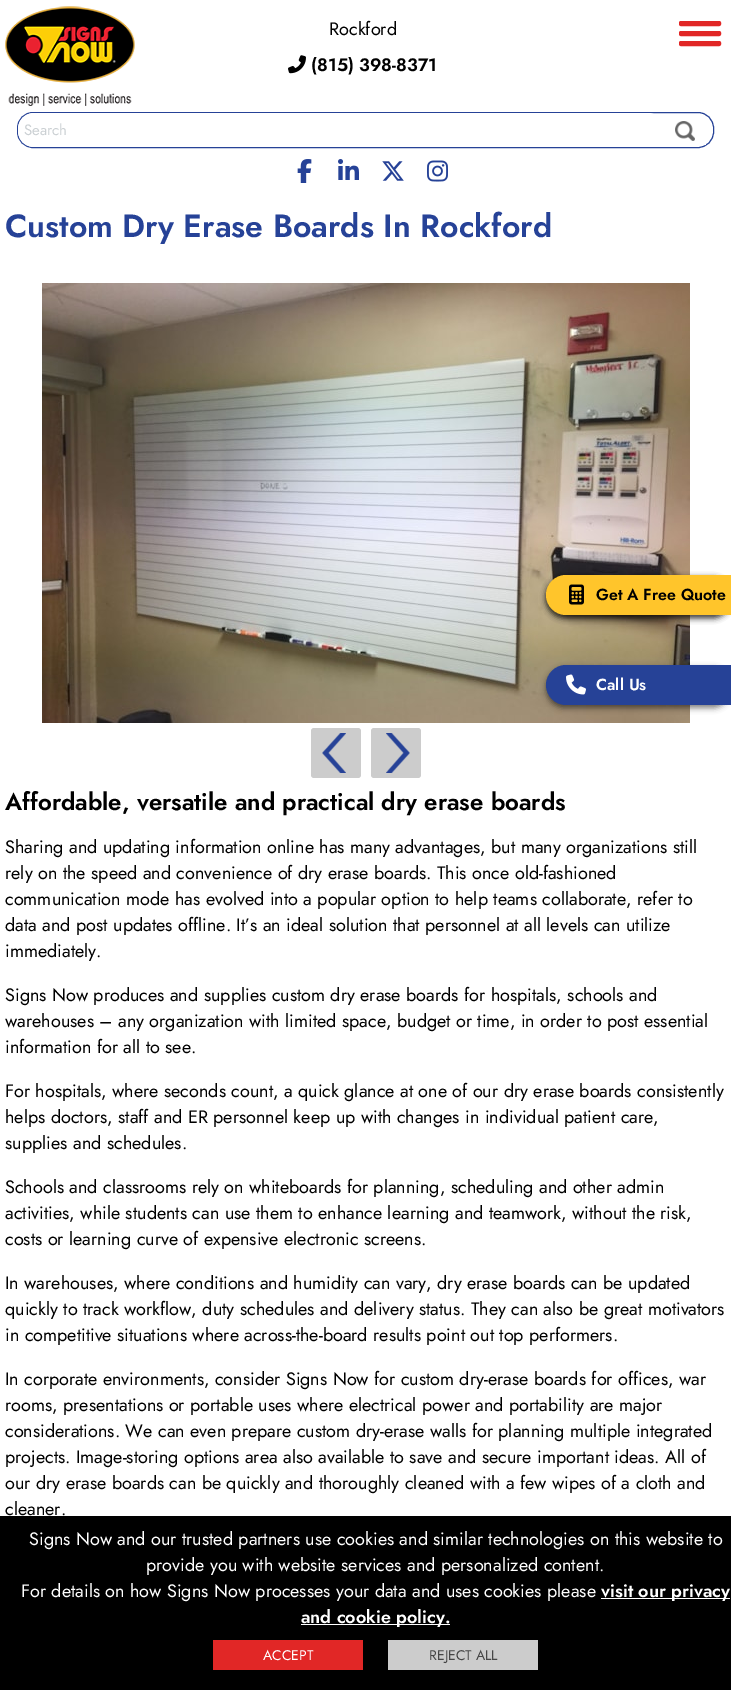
%!PS-Adobe-3.0
%%BoundingBox: 0 0 731 1690
%%LanguageLevel: 3
%%Pages: 1
%%EndComments
%%BeginProlog
/setink { dup -16 bitshift 255 div exch dup -8 bitshift 255 and 255 div exch 255 and 255 div setrgbcolor } def
/usefont { [ exch dup neg 0 0 3 -1 roll 0 0 ] selectfont } def
/setalpha { dup .setfillconstantalpha .setstrokeconstantalpha } def
/rrect { 5 dict begin { /r /h /w /y /x } { exch def } forall
  x r add y moveto x w add y 2 copy h add r arct x w add y h add x 1 index r arct
  x y h add x y r arct x y 2 copy exch w add exch r arct closepath end } def
/softshadow { 12 dict begin { /a /b /q /h /w /y /x } { exch def } forall gsave /was 0 def
  9 -2 -9 { dup b mul 4 div /e exch def 1 sub .425 mul 2.718 exch exp 1 add a .99 .min exch div /now exch def
    1 1 now sub 1 was sub div sub setalpha /was now def
    w h .min e 2 mul add 0 gt { x e sub y e sub w e 2 mul add h e 2 mul add
      q e add b .6 mul add w h .min 2 div e add .min 0 .max rrect fill } if } for grestore end } def
/drawimage { 5 dict begin { /h /w /y /x /name } { exch def } forall
  gsave x y translate w h scale
  w h 8 [w 0 0 h 0 0] name (r) file false 3 colorimage grestore end } def
%%EndProlog
%%BeginSetup
<< /PageSize [731 1690] /PageUsesTransparency true >> setpagedevice
%%EndSetup
%%Page: 1 1
0 .pushpdf14devicefilter
0 1690 translate 1 -1 scale
4 setmiterlimit
16#FFFFFF setink
0 0 731 1690 rectfill
(img1.raw) 5 6 130 100 drawimage
/Jost-Regular 18 usefont
16#000000 setink
329 35 moveto (Rockford) show
(img2.raw) 288 55 18 19 drawimage
/Jost-SemiBold 18 usefont
311 71 moveto (\(815\) 398-8371) show
16#E12726 setink
679.5 21.5 41 4 1.5 rrect gsave fill grestore
stroke
679.5 31.5 41 4 1.5 rrect gsave fill grestore
stroke
679.5 41.5 41 4 1.5 rrect gsave fill grestore
stroke
16#264297 setink
17.5 112.5 696 35 15.5 rrect stroke
gsave
18 113 695 34 15 rrect clip newpath
16#FFFFFF setink
18 113 646 34 16 rrect fill
grestore
/Jost-Regular 15 usefont
16#CBD0D3 setink
24 135 moveto (Search) show
16#FFFFFF setink
705 144 1 1 rectfill
(img3.raw) 675 121 20 20 drawimage
(img4.raw) 297 159 15 24 drawimage
(img5.raw) 338 159 21 21 drawimage
(img6.raw) 382 161 22 20 drawimage
(img7.raw) 427 160 21 22 drawimage
/Jost-SemiBold 32 usefont
16#264297 setink
5 237 moveto (Custom Dry Erase Boards In Rockford) show
(img8.raw) 42 283 648 440 drawimage
16#CCCCCC setink
311 728 50 50 3 rrect fill
(img9.raw) 322 733 24 40 drawimage
371 728 50 50 3 rrect fill
(img10.raw) 386 733 24 40 drawimage
/Jost-SemiBold 24 usefont
16#000000 setink
5 810 moveto (Affordable, versatile and practical dry erase boards) show
/Jost-Regular 18 usefont
[
    [(Sharing and updating information online has many advantages, but many organizations still) 5 853]
    [(rely on the speed and convenience of dry erase boards. This once old-fashioned) 5 879]
    [(communication mode has evolved into a popular option to help teams collaborate, refer to) 5 905]
    [(data and post updates offline. It’s an ideal solution that personnel at all levels can utilize) 5 931]
    [(immediately.) 5 957]
    [(Signs Now produces and supplies custom dry erase boards for hospitals, schools and) 5 1001]
    [(warehouses – any organization with limited space, budget or time, in order to post essential) 5 1027]
    [(information for all to see.) 5 1053]
    [(For hospitals, where seconds count, a quick glance at one of our dry erase boards consistently) 5 1097]
    [(helps doctors, staff and ER personnel keep up with changes in individual patient care,) 5 1123]
    [(supplies and schedules.) 5 1149]
    [(Schools and classrooms rely on whiteboards for planning, scheduling and other admin) 5 1193]
    [(activities, while students can use them to enhance learning and teamwork, without the risk,) 5 1219]
    [(costs or learning curve of expensive electronic screens.) 5 1245]
    [(In warehouses, where conditions and humidity can vary, dry erase boards can be updated) 5 1289]
    [(quickly to track workflow, duty schedules and delivery status. They can also be great motivators) 5 1315]
    [(in competitive situations where across-the-board results point out top performers.) 5 1341]
    [(In corporate environments, consider Signs Now for custom dry-erase boards for offices, war) 5 1385]
    [(rooms, presentations or portable uses where electrical power and portability are major) 5 1411]
    [(considerations. We can even prepare custom dry-erase walls for planning multiple integrated) 5 1437]
    [(projects. Image-storing options area also available to save and secure important ideas. All of) 5 1463]
    [(our dry erase boards can be quickly and thoroughly cleaned with a few wipes of a cloth and) 5 1489]
    [(cleaner.) 5 1515]
] { aload pop moveto show } forall
546 578 185 40 20 3 0.5 softshadow
546 578 185 40 20 3 0.5 softshadow
16#FFC52B setink
566 575 moveto 731 575 lineto 731 615 lineto 566 615 lineto 555 615 546 606 546 595 curveto 546 584 555 575 566 575 curveto closepath fill
(img11.raw) 569 584 15 21 drawimage
/Jost-SemiBold 16 usefont
16#000000 setink
596 600 moveto (Get A Free Quote) show
546 668 185 40 20 3 0.5 softshadow
16#264297 setink
566 665 moveto 731 665 lineto 731 705 lineto 566 705 lineto 555 705 546 696 546 685 curveto 546 674 555 665 566 665 curveto closepath fill
(img12.raw) 566 674 20 21 drawimage
16#FFFFFF setink
596 690 moveto (Call Us) show
16#000000 setink
0 1516 731 174 rectfill
/Jost-Regular 18 usefont
16#FFFFFF setink
[
    [(Signs Now and our trusted partners use cookies and similar technologies on this website to) 29 1545]
    [(provide you with website services and personalized content.) 146 1571]
    [(For details on how Signs Now processes your data and uses cookies please) 21 1597]
] { aload pop moveto show } forall
601 1598 129 1 rectfill
/Jost-SemiBold 18 usefont
601 1597 moveto (visit our privacy) show
301 1624 149 1 rectfill
301 1623 moveto (and cookie policy.) show
16#E12726 setink
213 1640 150 30 rectfill
/Jost-Regular 14 usefont
16#FFFFFF setink
263 1660 moveto (ACCEPT) show
16#CCCCCC setink
388 1640 150 30 rectfill
16#464646 setink
429 1660 moveto (REJECT ALL) show
.poppdf14devicefilter showpage
%%EOF
